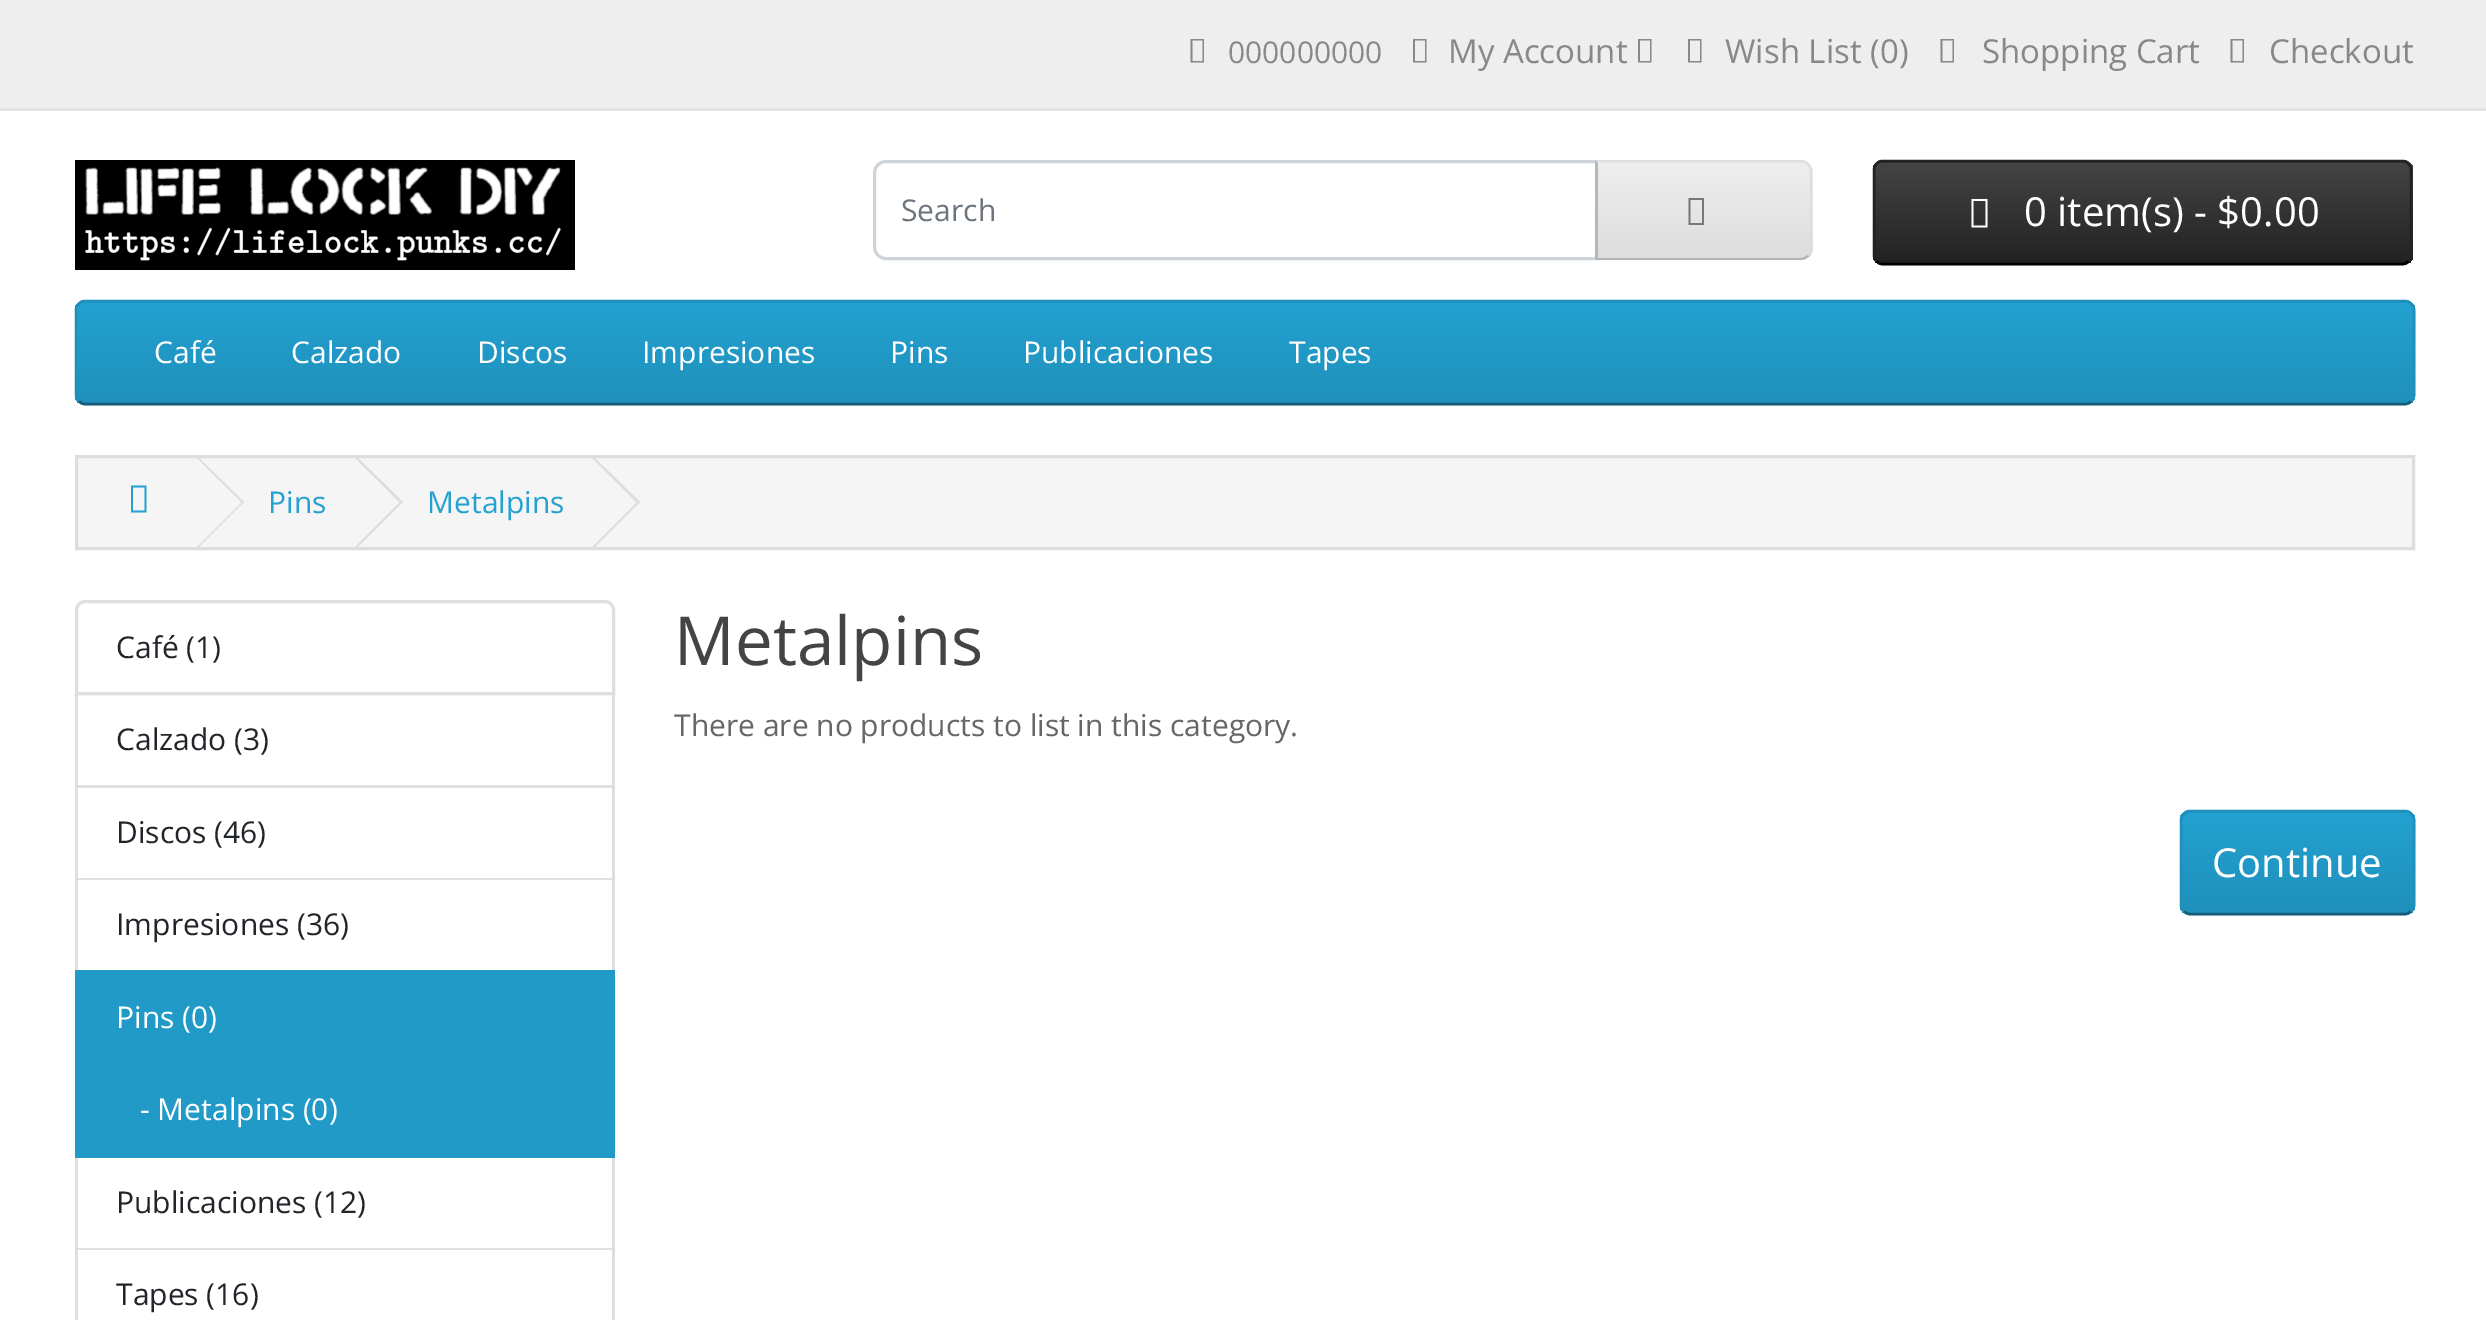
%!PS-Adobe-3.0
%%BoundingBox: 0 0 2486 1320
%%LanguageLevel: 3
%%Pages: 1
%%EndComments
%%BeginProlog
/setink { dup -16 bitshift 255 div exch dup -8 bitshift 255 and 255 div exch 255 and 255 div setrgbcolor } def
/usefont { [ exch dup neg 0 0 3 -1 roll 0 0 ] selectfont } def
/setalpha { dup .setfillconstantalpha .setstrokeconstantalpha } def
/rrect { 5 dict begin { /r /h /w /y /x } { exch def } forall
  x r add y moveto x w add y 2 copy h add r arct x w add y h add x 1 index r arct
  x y h add x y r arct x y 2 copy exch w add exch r arct closepath end } def
/drawimage { 5 dict begin { /h /w /y /x /name } { exch def } forall
  gsave x y translate w h scale
  w h 8 [w 0 0 h 0 0] name (r) file false 3 colorimage grestore end } def
%%EndProlog
%%BeginSetup
<< /PageSize [2486 1320] /PageUsesTransparency true >> setpagedevice
%%EndSetup
%%Page: 1 1
0 .pushpdf14devicefilter
0 1320 translate 1 -1 scale
4 setmiterlimit
16#FFFFFF setink
0 0 2486 1320 rectfill
16#EEEEEE setink
0 0 2486 108 rectfill
16#E2E2E2 setink
0 108 2486 3 rectfill
16#888888 setink
1190.5 62.5 moveto 1190.5 39 lineto 1204 39 lineto 1204 62.5 lineto closepath 1192.5 61 moveto 1202.5 61 lineto 1202.5 40.5 lineto 1192.5 40.5 lineto closepath fill
/OpenSans-Regular 30 usefont
1228 63 moveto (000000000) show
1413 62.5 moveto 1413 39 lineto 1426.5 39 lineto 1426.5 62.5 lineto closepath 1415 61 moveto 1425 61 lineto 1425 40.5 lineto 1415 40.5 lineto closepath fill
/OpenSans-Regular 33 usefont
1448 63 moveto (My Account) show
1638 62.5 moveto 1638 39 lineto 1651.5 39 lineto 1651.5 62.5 lineto closepath 1640 61 moveto 1650 61 lineto 1650 40.5 lineto 1640 40.5 lineto closepath fill
1688 62.5 moveto 1688 39 lineto 1701.5 39 lineto 1701.5 62.5 lineto closepath 1690 61 moveto 1700 61 lineto 1700 40.5 lineto 1690 40.5 lineto closepath fill
1725 63 moveto (Wish List \(0\)) show
1940.5 62.5 moveto 1940.5 39 lineto 1954 39 lineto 1954 62.5 lineto closepath 1942.5 61 moveto 1952.5 61 lineto 1952.5 40.5 lineto 1942.5 40.5 lineto closepath fill
1982 63 moveto (Shopping Cart) show
2230.5 62.5 moveto 2230.5 39 lineto 2244 39 lineto 2244 62.5 lineto closepath 2232.5 61 moveto 2242.5 61 lineto 2242.5 40.5 lineto 2232.5 40.5 lineto closepath fill
2269 63 moveto (Checkout) show
(img1.raw) 75 160 500 110 drawimage
16#CED4DA setink
3 setlinewidth
886 161.5 moveto 1596.5 161.5 lineto 1596.5 258.5 lineto 886 258.5 lineto 879.5 258.5 874.5 253.5 874.5 247 curveto 874.5 173 lineto 874.5 166.5 879.5 161.5 886 161.5 curveto closepath stroke
/OpenSans-Regular 30 usefont
16#6C757D setink
901 221 moveto (Search) show
16#E7E7E7 setink
1595 160 moveto 1800 160 lineto 1807 160 1813 166 1813 173 curveto 1813 247 lineto 1813 254 1807 260 1800 260 curveto 1595 260 lineto closepath fill
gsave
1595 160 moveto 1800 160 lineto 1807 160 1813 166 1813 173 curveto 1813 247 lineto 1813 254 1807 260 1800 260 curveto 1595 260 lineto closepath clip newpath
gsave 1597 163 moveto 1813 163 lineto 1813 258 lineto 1597 258 lineto closepath clip newpath
<< /ShadingType 2 /ColorSpace /DeviceRGB /Coords [1704 163 1704 258] /Extend [true true] /Function << /FunctionType 2 /Domain [0 1] /C0 [0.933 0.933 0.933] /C1 [0.867 0.867 0.867] /N 1 >> >> shfill grestore
grestore
16#DDDDDD setink
1595 160 moveto 1598 163 lineto 1598 162 lineto 1800 162 lineto 1803 162 1806 163 1807 165 curveto 1809 164 lineto 1807 161 1804 160 1800 160 curveto closepath fill
1809 164 moveto 1811 166 1812 169 1812 172 curveto 1812 248 lineto 1812 251 1811 254 1809 256 curveto 1807 255 lineto 1809 253 1810 250 1810 248 curveto 1810 172 lineto 1810 170 1809 167 1807 165 curveto closepath fill
16#B3B3B3 setink
1800 260 moveto 1804 260 1807 259 1809 256 curveto 1807 255 lineto 1806 257 1803 258 1800 258 curveto 1598 258 lineto 1598 257 lineto 1595 260 lineto closepath fill
16#B7B7B7 setink
1595 160 moveto 1595 260 lineto 1598 257 lineto 1598 163 lineto closepath fill
16#777777 setink
1688.5 225 moveto 1688.5 198 lineto 1704 198 lineto 1704 225 lineto closepath 1690.5 223 moveto 1702 223 lineto 1702 200 lineto 1690.5 200 lineto closepath fill
16#363636 setink
1873 160 540 105 10 rrect fill
gsave
1873 160 540 105 10 rrect clip newpath
gsave 1873 163 moveto 2413 163 lineto 2413 263 lineto 1873 263 lineto closepath clip newpath
<< /ShadingType 2 /ColorSpace /DeviceRGB /Coords [2143 162 2143 263] /Extend [true true] /Function << /FunctionType 2 /Domain [0 1] /C0 [0.267 0.267 0.267] /C1 [0.133 0.133 0.133] /N 1 >> >> shfill grestore
grestore
16#000000 setink
2.5 setlinewidth
2408.5 261 moveto 2407 263 2405 264 2402.5 264 curveto 1882.5 264 lineto 1880 264 1878 263 1876.5 261 curveto stroke
16#222222 setink
1876.5 261 moveto 1874.5 259.5 1874 257.5 1874 255 curveto 1874 170 lineto 1874 167.5 1874.5 165.5 1876.5 164 curveto 1878 162 1880 161 1882.5 161 curveto 2402.5 161 lineto 2405 161 2407 162 2408.5 164 curveto 2410.5 165.5 2411 167.5 2411 170 curveto 2411 255 lineto 2411 257.5 2410.5 259.5 2408.5 261 curveto stroke
16#FFFFFF setink
1971.5 227.5 moveto 1971.5 199 lineto 1987.5 199 lineto 1987.5 227.5 lineto closepath 1973.5 225.5 moveto 1985.5 225.5 lineto 1985.5 201 lineto 1973.5 201 lineto closepath fill
/OpenSans-Regular 40 usefont
2024 226 moveto (0 item\(s\) - $0.00) show
16#229AC8 setink
75 300 2340 105 10 rrect fill
gsave
75 300 2340 105 10 rrect clip newpath
gsave 75 303 moveto 2415 303 lineto 2415 403 lineto 75 403 lineto closepath clip newpath
<< /ShadingType 2 /ColorSpace /DeviceRGB /Coords [1245 302 1245 403] /Extend [true true] /Function << /FunctionType 2 /Domain [0 1] /C0 [0.137 0.631 0.82] /C1 [0.122 0.565 0.733] /N 1 >> >> shfill grestore
grestore
16#145E7A setink
2411 401 moveto 2409.5 403 2407.5 404 2405 404 curveto 85 404 lineto 82.5 404 80.5 403 79 401 curveto stroke
16#1F90BB setink
79 401 moveto 77 399.5 76 397.5 76 395 curveto 76 310 lineto 76 307.5 77 305.5 79 304 curveto 80.5 302 82.5 301 85 301 curveto 2405 301 lineto 2407.5 301 2409.5 302 2411 304 curveto 2413 305.5 2414 307.5 2414 310 curveto 2414 395 lineto 2414 397.5 2413 399.5 2411 401 curveto stroke
/OpenSans-Regular 30 usefont
16#FFFFFF setink
[
    [(Café) 154 363]
    [(Calzado) 291 363]
    [(Discos) 477 363]
    [(Impresiones) 642 363]
    [(Pins) 890 363]
    [(Publicaciones) 1023 363]
    [(Tapes) 1289 363]
] { aload pop moveto show } forall
16#F5F5F5 setink
76.5 456.5 moveto 2413.5 456.5 lineto 2413.5 548.5 lineto 76.5 548.5 lineto closepath gsave fill grestore
16#DDDDDD setink
3 setlinewidth
stroke
16#23A1D1 setink
131 512.5 moveto 131 485.5 lineto 146.5 485.5 lineto 146.5 512.5 lineto closepath 133 510.5 moveto 144.5 510.5 lineto 144.5 487.5 lineto 133 487.5 lineto closepath fill
16#DDDDDD setink
197 458 moveto 198 457 lineto 244 502 lineto 243 504 lineto closepath fill
197 547 moveto 243 501 lineto 244 502 lineto 198 548 lineto closepath fill
16#23A1D1 setink
268 513 moveto (Pins) show
16#DDDDDD setink
355 458 moveto 357 457 lineto 403 502 lineto 401 504 lineto closepath fill
355 547 moveto 401 501 lineto 403 502 lineto 357 548 lineto closepath fill
16#23A1D1 setink
427 513 moveto (Metalpins) show
16#DDDDDD setink
592 458 moveto 594 457 lineto 640 502 lineto 638 504 lineto closepath fill
592 547 moveto 638 501 lineto 640 502 lineto 594 548 lineto closepath fill
16#DFDFDF setink
85 601.5 moveto 605 601.5 lineto 609.5 601.5 613.5 605.5 613.5 610 curveto 613.5 693.5 lineto 76.5 693.5 lineto 76.5 610 lineto 76.5 605.5 80.5 601.5 85 601.5 curveto closepath stroke
16#212529 setink
116 658 moveto (Café \(1\)) show
16#DFDFDF setink
615 695 moveto 615 788 lineto 612 785 lineto 612 695 lineto closepath fill
0.12 setalpha
16#000000 setink
615 788 moveto 75 788 lineto 78 785 lineto 612 785 lineto closepath fill
75 788 moveto 75 695 lineto 78 695 lineto 78 785 lineto closepath fill
1 setalpha
16#212529 setink
116 750 moveto (Calzado \(3\)) show
16#DFDFDF setink
615 788 moveto 615 880 lineto 612 878 lineto 612 788 lineto closepath fill
0.12 setalpha
16#000000 setink
615 880 moveto 75 880 lineto 78 878 lineto 612 878 lineto closepath fill
75 880 moveto 75 788 lineto 78 788 lineto 78 878 lineto closepath fill
1 setalpha
16#212529 setink
116 843 moveto (Discos \(46\)) show
16#DFDFDF setink
615 880 moveto 615 972 lineto 612 970 lineto 612 880 lineto closepath fill
0.12 setalpha
16#000000 setink
75 972 moveto 75 880 lineto 78 880 lineto 78 970 lineto closepath fill
1 setalpha
16#212529 setink
116 935 moveto (Impresiones \(36\)) show
16#229AC8 setink
75 970 540 188 rectfill
16#FFFFFF setink
116 1028 moveto (Pins \(0\)) show
140 1120 moveto (- Metalpins \(0\)) show
16#DFDFDF setink
615 1158 moveto 615 1250 lineto 612 1248 lineto 612 1158 lineto closepath fill
0.12 setalpha
16#000000 setink
615 1250 moveto 75 1250 lineto 78 1248 lineto 612 1248 lineto closepath fill
75 1250 moveto 75 1158 lineto 78 1158 lineto 78 1248 lineto closepath fill
1 setalpha
16#212529 setink
116 1213 moveto (Publicaciones \(12\)) show
16#DFDFDF setink
75 1250 moveto 615 1250 lineto 615 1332 lineto 615 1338 611 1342 605 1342 curveto 85 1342 lineto 79 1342 75 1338 75 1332 curveto closepath 78 1250 moveto 612 1250 lineto 612 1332 lineto 612 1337 609 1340 605 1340 curveto 85 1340 lineto 81 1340 78 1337 78 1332 curveto closepath eofill
16#212529 setink
116 1305 moveto (Tapes \(16\)) show
/OpenSans-Regular 67.5 usefont
16#444444 setink
674 665 moveto (Metalpins) show
/OpenSans-Regular 30 usefont
16#666666 setink
674 736 moveto (There are no products to list in this category.) show
16#229AC8 setink
2180 810 235 105 10 rrect fill
gsave
2180 810 235 105 10 rrect clip newpath
gsave 2180 813 moveto 2415 813 lineto 2415 913 lineto 2180 913 lineto closepath clip newpath
<< /ShadingType 2 /ColorSpace /DeviceRGB /Coords [2298 813 2298 913] /Extend [true true] /Function << /FunctionType 2 /Domain [0 1] /C0 [0.137 0.631 0.82] /C1 [0.122 0.565 0.733] /N 1 >> >> shfill grestore
grestore
16#145E7A setink
2.5 setlinewidth
2411 911 moveto 2409.5 913 2407.5 914 2405 914 curveto 2190 914 lineto 2187.5 914 2185.5 913 2184 911 curveto stroke
16#1F90BB setink
2184 911 moveto 2182 909.5 2181 907.5 2181 905 curveto 2181 820 lineto 2181 817.5 2182 815.5 2184 814 curveto 2185.5 812 2187.5 811 2190 811 curveto 2405 811 lineto 2407.5 811 2409.5 812 2411 814 curveto 2413 815.5 2414 817.5 2414 820 curveto 2414 905 lineto 2414 907.5 2413 909.5 2411 911 curveto stroke
/OpenSans-Regular 40 usefont
16#FFFFFF setink
2212 877 moveto (Continue) show
.poppdf14devicefilter showpage
%%EOF
